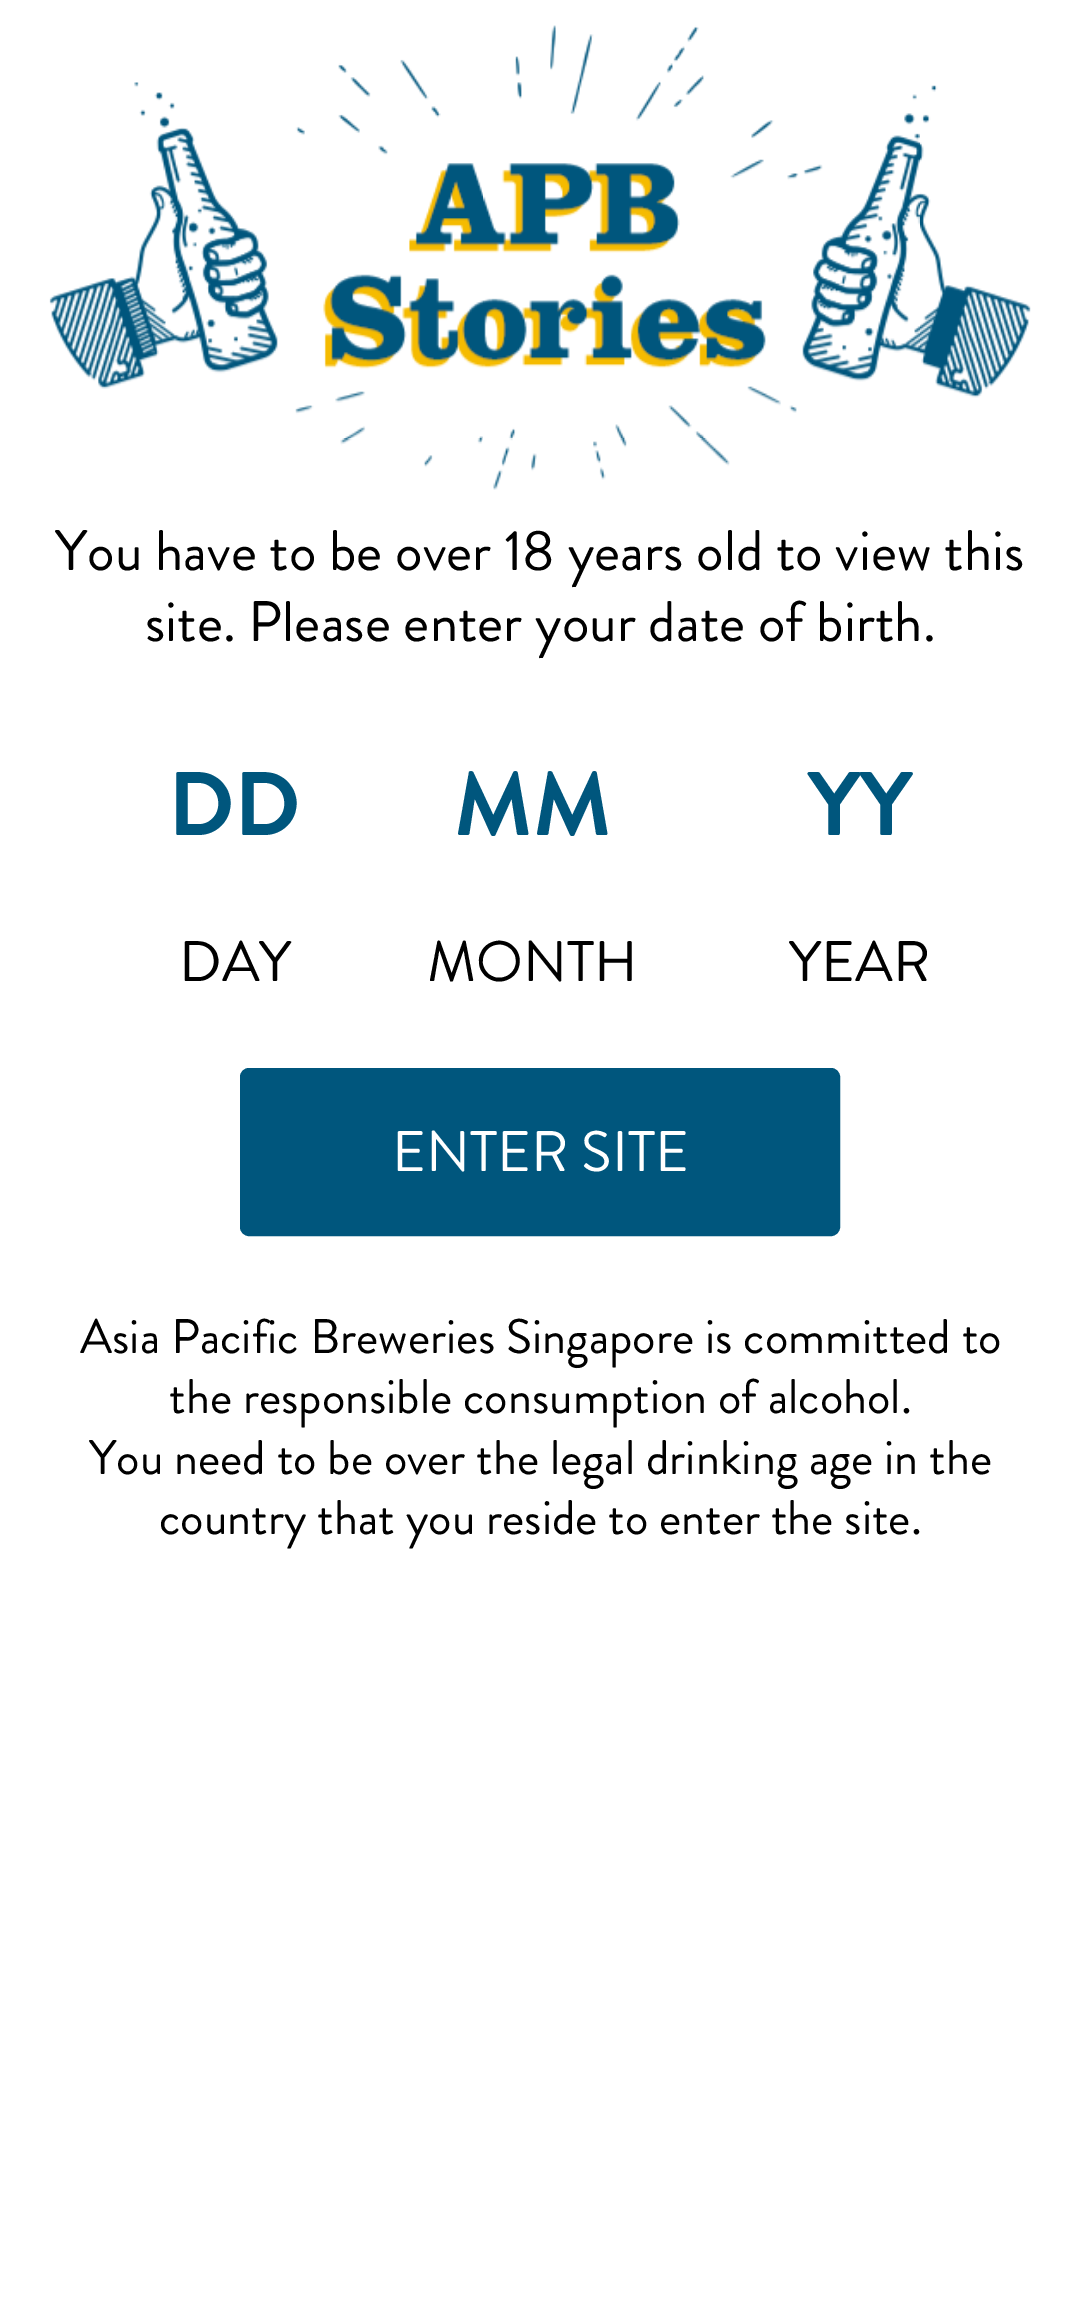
%!PS-Adobe-3.0
%%BoundingBox: 0 0 1078 2309
%%LanguageLevel: 3
%%Pages: 1
%%EndComments
%%BeginProlog
/setink { dup -16 bitshift 255 div exch dup -8 bitshift 255 and 255 div exch 255 and 255 div setrgbcolor } def
/usefont { [ exch dup neg 0 0 3 -1 roll 0 0 ] selectfont } def
/rrect { 5 dict begin { /r /h /w /y /x } { exch def } forall
  x r add y moveto x w add y 2 copy h add r arct x w add y h add x 1 index r arct
  x y h add x y r arct x y 2 copy exch w add exch r arct closepath end } def
/drawimage { 5 dict begin { /h /w /y /x /name } { exch def } forall
  gsave x y translate w h scale
  w h 8 [w 0 0 h 0 0] name (r) file false 3 colorimage grestore end } def
%%EndProlog
%%BeginSetup
<< /PageSize [1078 2309] >> setpagedevice
%%EndSetup
%%Page: 1 1
0 2309 translate 1 -1 scale
4 setmiterlimit
16#FFFFFF setink
0 0 1078 2309 rectfill
(img1.raw) 49 25 982 465 drawimage
/BrandonGrotesque-Regular 57 usefont
16#000000 setink
55 570 moveto (You have to be over 18 years old to view this) show
145 641 moveto (site. Please enter your date of birth.) show
/BrandonGrotesque-Bold 90 usefont
16#00567D setink
168 835 moveto (DD) show
/BrandonGrotesque-Regular 57 usefont
16#000000 setink
179 981 moveto (DAY) show
/BrandonGrotesque-Bold 90 usefont
16#00567D setink
454 835 moveto (MM) show
/BrandonGrotesque-Regular 57 usefont
16#000000 setink
427 981 moveto (MONTH) show
/BrandonGrotesque-Bold 90 usefont
16#00567D setink
808 835 moveto (YY) show
/BrandonGrotesque-Regular 57 usefont
16#000000 setink
789 981 moveto (YEAR) show
16#00567D setink
241.5 1069.5 597 165 7.5 rrect gsave fill grestore
3 setlinewidth
stroke
16#FFFFFF setink
392 1171 moveto (ENTER SITE) show
/BrandonGrotesque-Regular 48.5 usefont
16#000000 setink
[
    [(Asia Pacific Breweries Singapore is committed to) 80 1353]
    [(the responsible consumption of alcohol.) 169 1413]
    [(You need to be over the legal drinking age in the) 89 1474]
    [(country that you reside to enter the site.) 159 1534]
] { aload pop moveto show } forall
showpage
%%EOF
